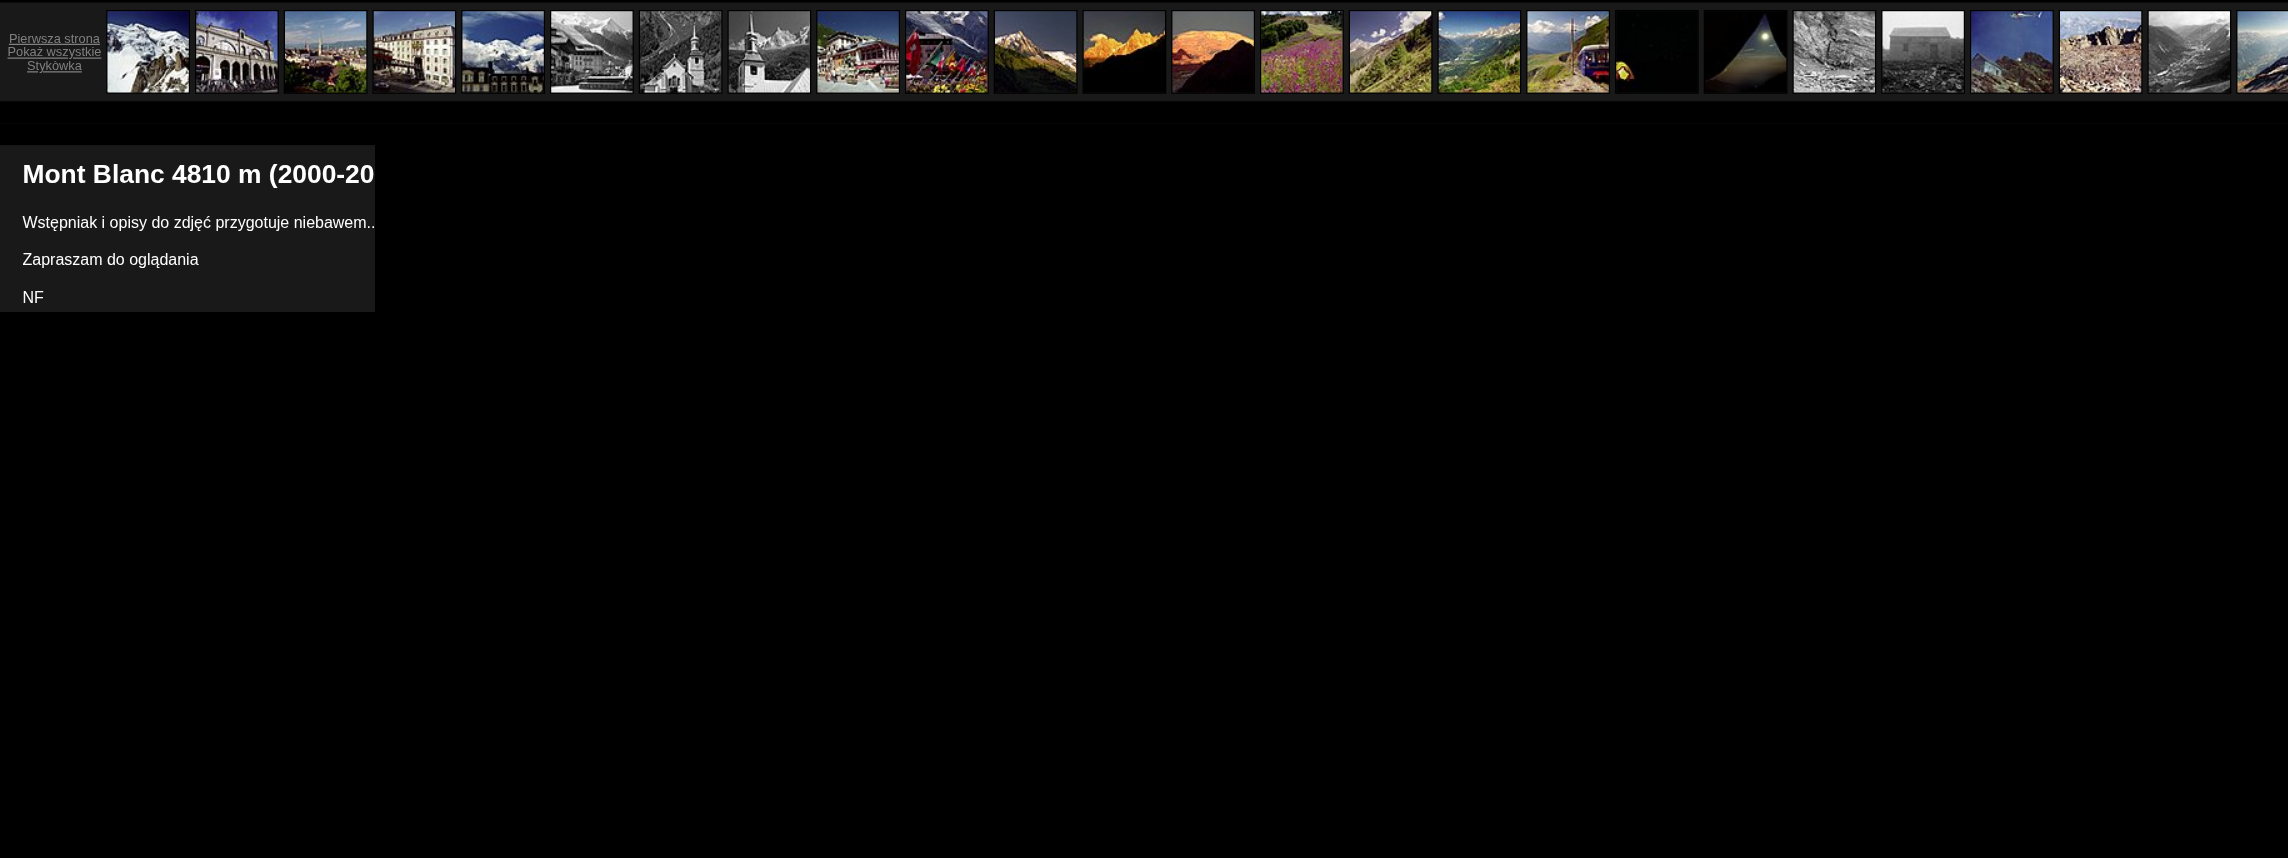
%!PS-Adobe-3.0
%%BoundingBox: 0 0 2288 858
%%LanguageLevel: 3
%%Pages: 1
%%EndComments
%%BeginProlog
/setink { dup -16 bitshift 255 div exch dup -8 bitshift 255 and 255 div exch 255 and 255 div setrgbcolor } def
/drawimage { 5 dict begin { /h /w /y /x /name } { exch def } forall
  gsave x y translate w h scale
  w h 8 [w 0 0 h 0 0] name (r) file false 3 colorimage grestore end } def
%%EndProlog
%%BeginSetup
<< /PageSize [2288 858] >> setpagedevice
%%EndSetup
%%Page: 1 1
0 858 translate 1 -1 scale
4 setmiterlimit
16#000000 setink
0 0 2288 858 rectfill
(img1.raw) 0 2 2288 122 drawimage
(img2.raw) 0 145 375 167 drawimage
showpage
%%EOF
